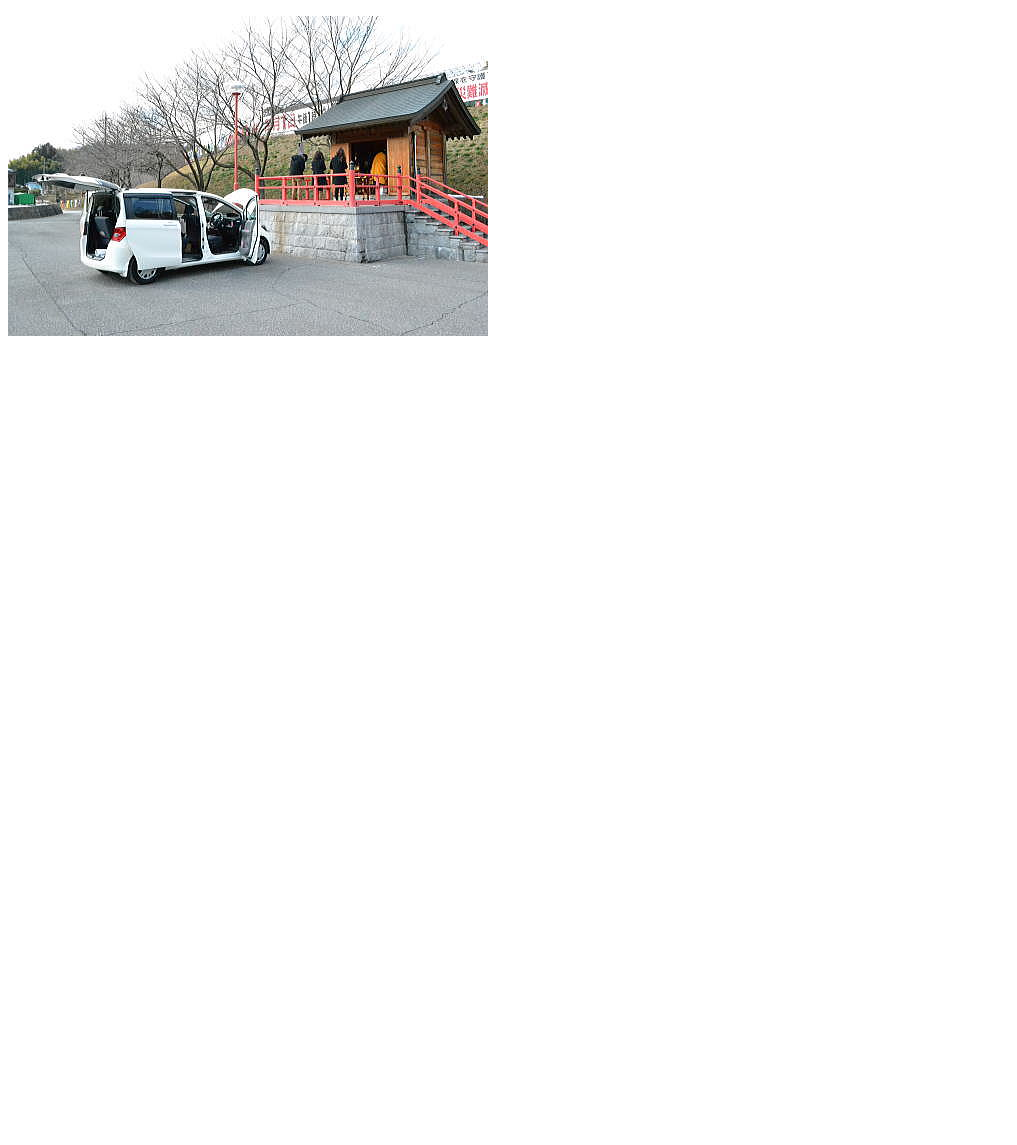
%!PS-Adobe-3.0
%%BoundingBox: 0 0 1017 1145
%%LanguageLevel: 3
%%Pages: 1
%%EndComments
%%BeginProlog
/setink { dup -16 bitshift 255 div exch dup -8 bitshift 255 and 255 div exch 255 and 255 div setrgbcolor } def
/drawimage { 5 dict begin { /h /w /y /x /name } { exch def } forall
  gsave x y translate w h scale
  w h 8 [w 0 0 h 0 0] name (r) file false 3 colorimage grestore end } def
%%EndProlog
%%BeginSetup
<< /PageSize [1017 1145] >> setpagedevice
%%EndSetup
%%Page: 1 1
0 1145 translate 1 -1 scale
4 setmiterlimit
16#FFFFFF setink
0 0 1017 1145 rectfill
(img1.raw) 8 16 480 320 drawimage
showpage
%%EOF
